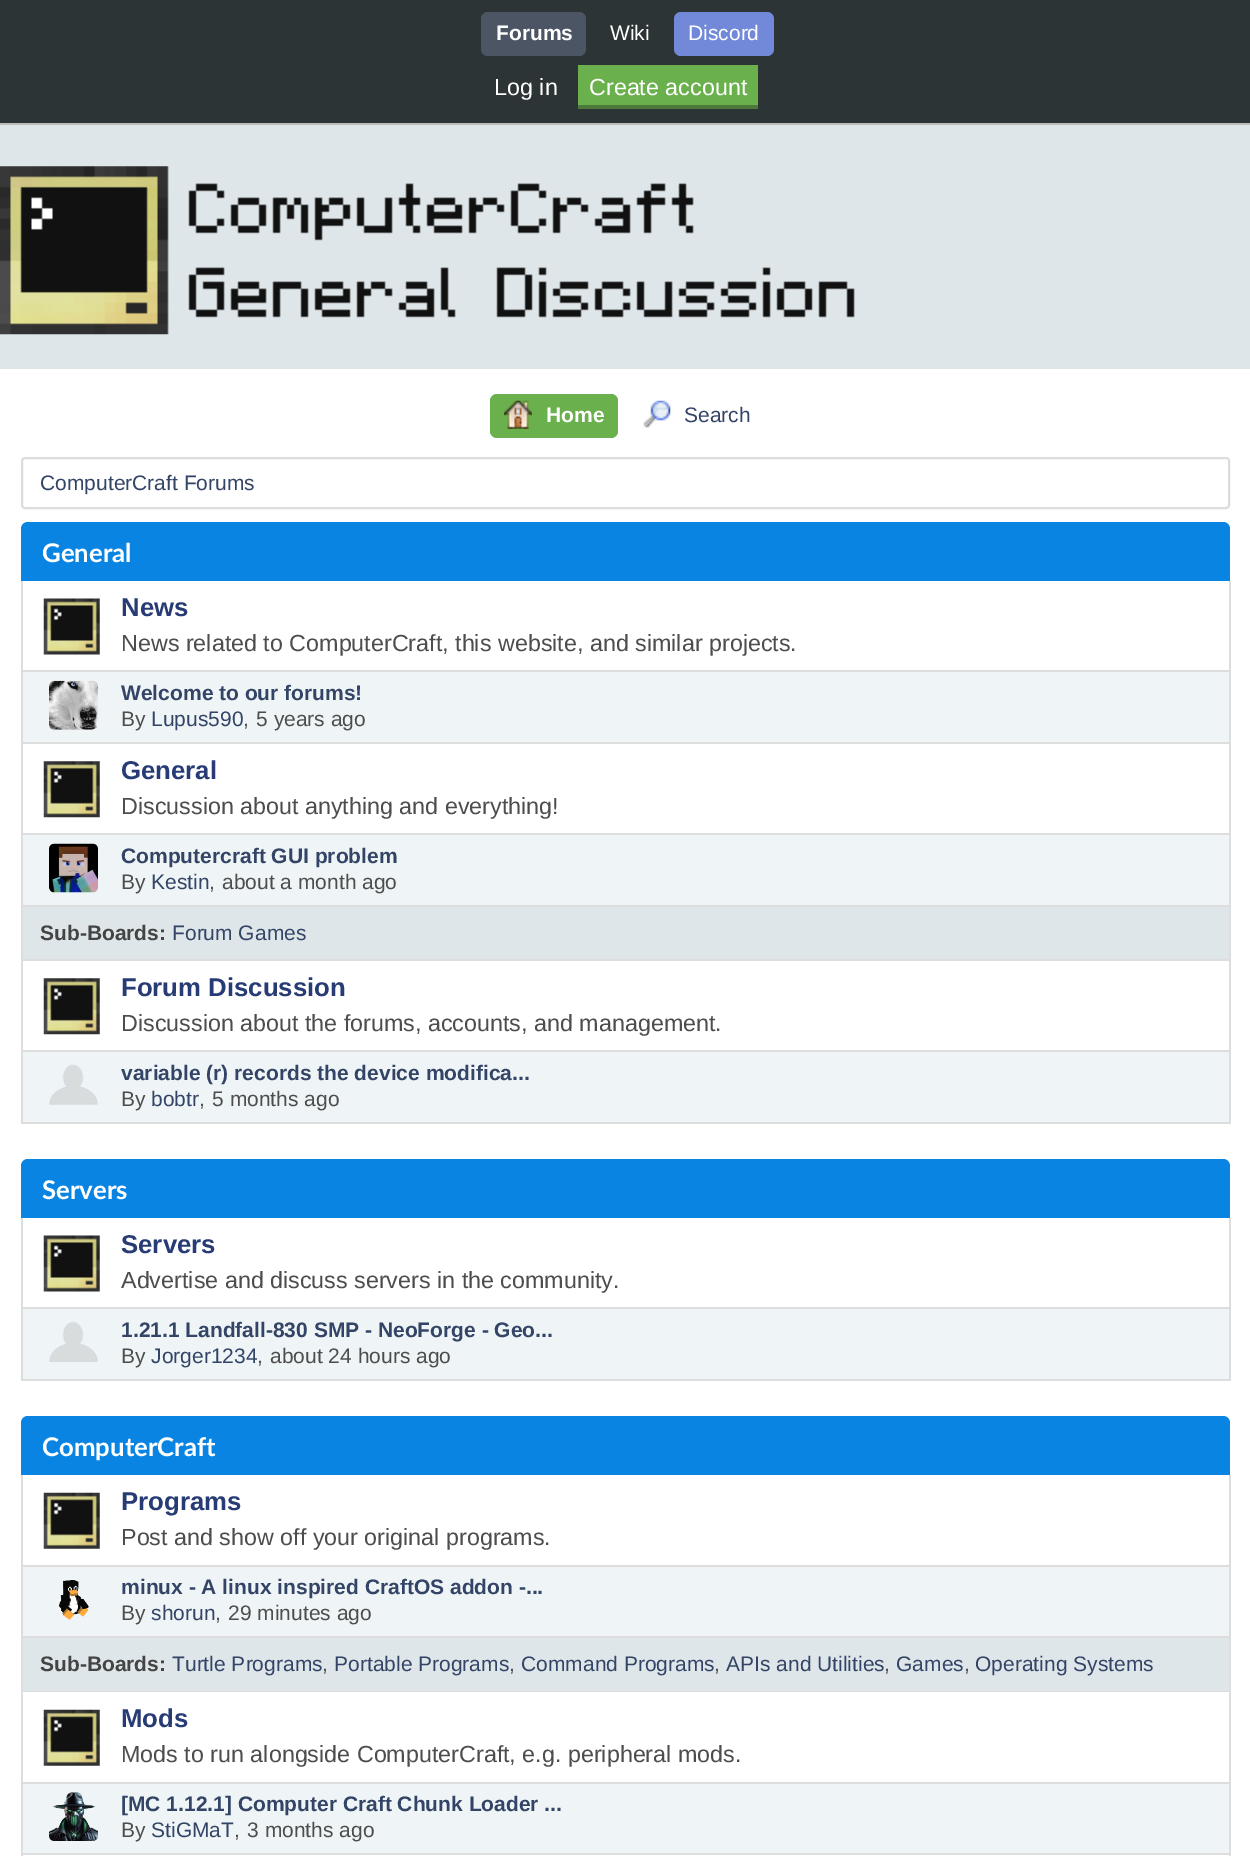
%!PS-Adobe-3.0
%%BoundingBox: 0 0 1250 1856
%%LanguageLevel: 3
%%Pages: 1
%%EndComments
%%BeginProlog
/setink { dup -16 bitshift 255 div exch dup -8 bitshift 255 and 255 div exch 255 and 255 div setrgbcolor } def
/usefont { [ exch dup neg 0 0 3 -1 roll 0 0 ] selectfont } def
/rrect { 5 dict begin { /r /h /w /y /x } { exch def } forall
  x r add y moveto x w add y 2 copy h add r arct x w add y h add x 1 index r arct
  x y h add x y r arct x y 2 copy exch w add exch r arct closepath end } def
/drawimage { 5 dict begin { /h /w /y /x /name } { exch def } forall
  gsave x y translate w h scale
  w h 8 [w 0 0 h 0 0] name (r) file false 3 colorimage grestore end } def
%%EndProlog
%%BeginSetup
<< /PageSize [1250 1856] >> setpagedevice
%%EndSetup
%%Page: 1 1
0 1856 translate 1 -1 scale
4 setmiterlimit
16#DFE6E9 setink
0 0 1250 1856 rectfill
16#2D3436 setink
0 0 1250 123 rectfill
16#BBBBBB setink
0 123 1250 2 rectfill
16#4B5563 setink
481 12 105 44 7 rrect fill
/LiberationSans-Bold 21 usefont
16#FFFFFF setink
496 40 moveto (Forums) show
/LiberationSans-Regular 21 usefont
610 40 moveto (Wiki) show
16#7289DA setink
674 12 100 44 7 rrect fill
16#FFFFFF setink
688 40 moveto (Discord) show
/LiberationSans-Regular 23.3 usefont
494 95 moveto (Log in) show
16#6AB04C setink
578 65 180 40 rectfill
16#FFFFFF setink
589 95 moveto (Create account) show
16#4D7A3A setink
578 105 180 4 rectfill
(img1.raw) 0 166 855 169 drawimage
16#FFFFFF setink
0 369 1250 1487 rectfill
16#6AB04C setink
490 394 128 44 7 rrect fill
(img2.raw) 504 400 28 29 drawimage
/LiberationSans-Bold 21 usefont
16#FFFFFF setink
546 422 moveto (Home) show
(img3.raw) 643 400 28 28 drawimage
/LiberationSans-Regular 21 usefont
16#334466 setink
684 422 moveto (Search) show
16#DDDDDD setink
2 setlinewidth
22 458 1207 50 3 rrect stroke
16#334466 setink
40 490 moveto (ComputerCraft Forums) show
16#0984E3 setink
28 522 moveto 1223 522 lineto 1227 522 1230 525 1230 529 curveto 1230 581 lineto 21 581 lineto 21 529 lineto 21 525 24 522 28 522 curveto closepath fill
/Lato-Bold 25.75 usefont
16#FFFFFF setink
42 562 moveto (General) show
[
    [1229 581 2 543 16#DDDDDD]
    [21 742 1209 2 16#DDDDDD]
    [21 581 2 163 16#DDDDDD]
] { aload pop setink rectfill } forall
(img4.raw) 43 598 57 57 drawimage
/LiberationSans-Bold 25.75 usefont
16#273C75 setink
121 616 moveto (News) show
/LiberationSans-Regular 23.3 usefont
16#4D4D4D setink
121 651 moveto (News related to ComputerCraft, this website, and similar projects.) show
16#EFF5F7 setink
23 672 1206 70 rectfill
16#DDDDDD setink
23 670 1206 2 rectfill
(img5.raw) 49 680 49 50 drawimage
/LiberationSans-Bold 21 usefont
16#334466 setink
121 700 moveto (Welcome to our forums!) show
/LiberationSans-Regular 21 usefont
16#4D4D4D setink
121 726 moveto (By) show
16#334466 setink
151 726 moveto (Lupus590) show
16#4D4D4D setink
243 726 moveto (,) show
256 726 moveto (5 years ago) show
16#DDDDDD setink
21 959 1209 2 rectfill
21 744 2 217 rectfill
(img6.raw) 43 761 57 57 drawimage
/LiberationSans-Bold 25.75 usefont
16#273C75 setink
121 779 moveto (General) show
/LiberationSans-Regular 23.3 usefont
16#4D4D4D setink
121 814 moveto (Discussion about anything and everything!) show
16#EFF5F7 setink
23 835 1206 70 rectfill
16#DDDDDD setink
23 833 1206 2 rectfill
(img7.raw) 49 843 49 50 drawimage
/LiberationSans-Bold 21 usefont
16#334466 setink
121 863 moveto (Computercraft GUI problem) show
/LiberationSans-Regular 21 usefont
16#4D4D4D setink
121 889 moveto (By) show
16#334466 setink
151 889 moveto (Kestin) show
16#4D4D4D setink
209 889 moveto (,) show
222 889 moveto (about a month ago) show
16#DFE6E9 setink
23 907 1206 52 rectfill
16#DDDDDD setink
23 905 1206 2 rectfill
/LiberationSans-Bold 21 usefont
16#444444 setink
40 940 moveto (Sub-Boards:) show
/LiberationSans-Regular 21 usefont
16#334466 setink
172 940 moveto (Forum Games) show
16#DDDDDD setink
21 1122 1209 2 rectfill
21 961 2 163 rectfill
(img6.raw) 43 978 57 57 drawimage
/LiberationSans-Bold 25.75 usefont
16#273C75 setink
121 996 moveto (Forum Discussion) show
/LiberationSans-Regular 23.3 usefont
16#4D4D4D setink
121 1031 moveto (Discussion about the forums, accounts, and management.) show
16#EFF5F7 setink
23 1052 1206 70 rectfill
16#DDDDDD setink
23 1050 1206 2 rectfill
(img8.raw) 49 1064 49 41 drawimage
/LiberationSans-Bold 21 usefont
16#334466 setink
121 1080 moveto (variable \(r\) records the device modifica...) show
/LiberationSans-Regular 21 usefont
16#4D4D4D setink
121 1106 moveto (By) show
16#334466 setink
151 1106 moveto (bobtr) show
16#4D4D4D setink
199 1106 moveto (,) show
212 1106 moveto (5 months ago) show
16#0984E3 setink
28 1159 moveto 1223 1159 lineto 1227 1159 1230 1162 1230 1166 curveto 1230 1218 lineto 21 1218 lineto 21 1166 lineto 21 1162 24 1159 28 1159 curveto closepath fill
/Lato-Bold 25.75 usefont
16#FFFFFF setink
42 1199 moveto (Servers) show
[
    [1229 1218 2 163 16#DDDDDD]
    [21 1379 1209 2 16#DDDDDD]
    [21 1218 2 163 16#DDDDDD]
] { aload pop setink rectfill } forall
(img4.raw) 43 1235 57 57 drawimage
/LiberationSans-Bold 25.75 usefont
16#273C75 setink
121 1253 moveto (Servers) show
/LiberationSans-Regular 23.3 usefont
16#4D4D4D setink
121 1288 moveto (Advertise and discuss servers in the community.) show
16#EFF5F7 setink
23 1309 1206 70 rectfill
16#DDDDDD setink
23 1307 1206 2 rectfill
(img9.raw) 49 1321 49 41 drawimage
/LiberationSans-Bold 21 usefont
16#334466 setink
121 1337 moveto (1.21.1 Landfall-830 SMP - NeoForge - Geo...) show
/LiberationSans-Regular 21 usefont
16#4D4D4D setink
121 1363 moveto (By) show
16#334466 setink
151 1363 moveto (Jorger1234) show
16#4D4D4D setink
257 1363 moveto (,) show
270 1363 moveto (about 24 hours ago) show
16#0984E3 setink
28 1416 moveto 1223 1416 lineto 1227 1416 1230 1419 1230 1423 curveto 1230 1475 lineto 21 1475 lineto 21 1423 lineto 21 1419 24 1416 28 1416 curveto closepath fill
/Lato-Bold 25.75 usefont
16#FFFFFF setink
42 1456 moveto (ComputerCraft) show
[
    [1229 1475 2 381 16#DDDDDD]
    [21 1691 1209 1 16#DDDDDD]
    [21 1475 2 217 16#DDDDDD]
] { aload pop setink rectfill } forall
(img10.raw) 43 1492 57 57 drawimage
/LiberationSans-Bold 25.75 usefont
16#273C75 setink
121 1510 moveto (Programs) show
/LiberationSans-Regular 23.3 usefont
16#4D4D4D setink
121 1545 moveto (Post and show off your original programs.) show
16#EFF5F7 setink
23 1567 1206 69 rectfill
16#DDDDDD setink
23 1565 1206 2 rectfill
(img11.raw) 58 1580 31 40 drawimage
/LiberationSans-Bold 21 usefont
16#334466 setink
121 1594 moveto (minux - A linux inspired CraftOS addon -...) show
/LiberationSans-Regular 21 usefont
16#4D4D4D setink
121 1620 moveto (By) show
16#334466 setink
151 1620 moveto (shorun) show
16#4D4D4D setink
215 1620 moveto (,) show
228 1620 moveto (29 minutes ago) show
16#DFE6E9 setink
23 1638 1206 53 rectfill
16#DDDDDD setink
23 1636 1206 2 rectfill
/LiberationSans-Bold 21 usefont
16#444444 setink
40 1671 moveto (Sub-Boards:) show
/LiberationSans-Regular 21 usefont
16#334466 setink
172 1671 moveto (Turtle Programs) show
16#4D4D4D setink
322 1671 moveto (,) show
16#334466 setink
334 1671 moveto (Portable Programs) show
16#4D4D4D setink
509 1671 moveto (,) show
16#334466 setink
521 1671 moveto (Command Programs) show
16#4D4D4D setink
714 1671 moveto (,) show
16#334466 setink
726 1671 moveto (APIs and Utilities) show
16#4D4D4D setink
884 1671 moveto (,) show
16#334466 setink
896 1671 moveto (Games) show
16#4D4D4D setink
964 1671 moveto (,) show
16#334466 setink
975 1671 moveto (Operating Systems) show
16#DDDDDD setink
21 1853 1209 2 rectfill
21 1692 2 164 rectfill
(img10.raw) 43 1709 57 57 drawimage
/LiberationSans-Bold 25.75 usefont
16#273C75 setink
121 1727 moveto (Mods) show
/LiberationSans-Regular 23.3 usefont
16#4D4D4D setink
121 1762 moveto (Mods to run alongside ComputerCraft, e.g. peripheral mods.) show
16#EFF5F7 setink
23 1784 1206 69 rectfill
16#DDDDDD setink
23 1782 1206 2 rectfill
(img12.raw) 49 1792 49 49 drawimage
/LiberationSans-Bold 21 usefont
16#334466 setink
121 1811 moveto ([MC 1.12.1] Computer Craft Chunk Loader ...) show
/LiberationSans-Regular 21 usefont
16#4D4D4D setink
121 1837 moveto (By) show
16#334466 setink
151 1837 moveto (StiGMaT) show
16#4D4D4D setink
234 1837 moveto (,) show
247 1837 moveto (3 months ago) show
showpage
%%EOF
